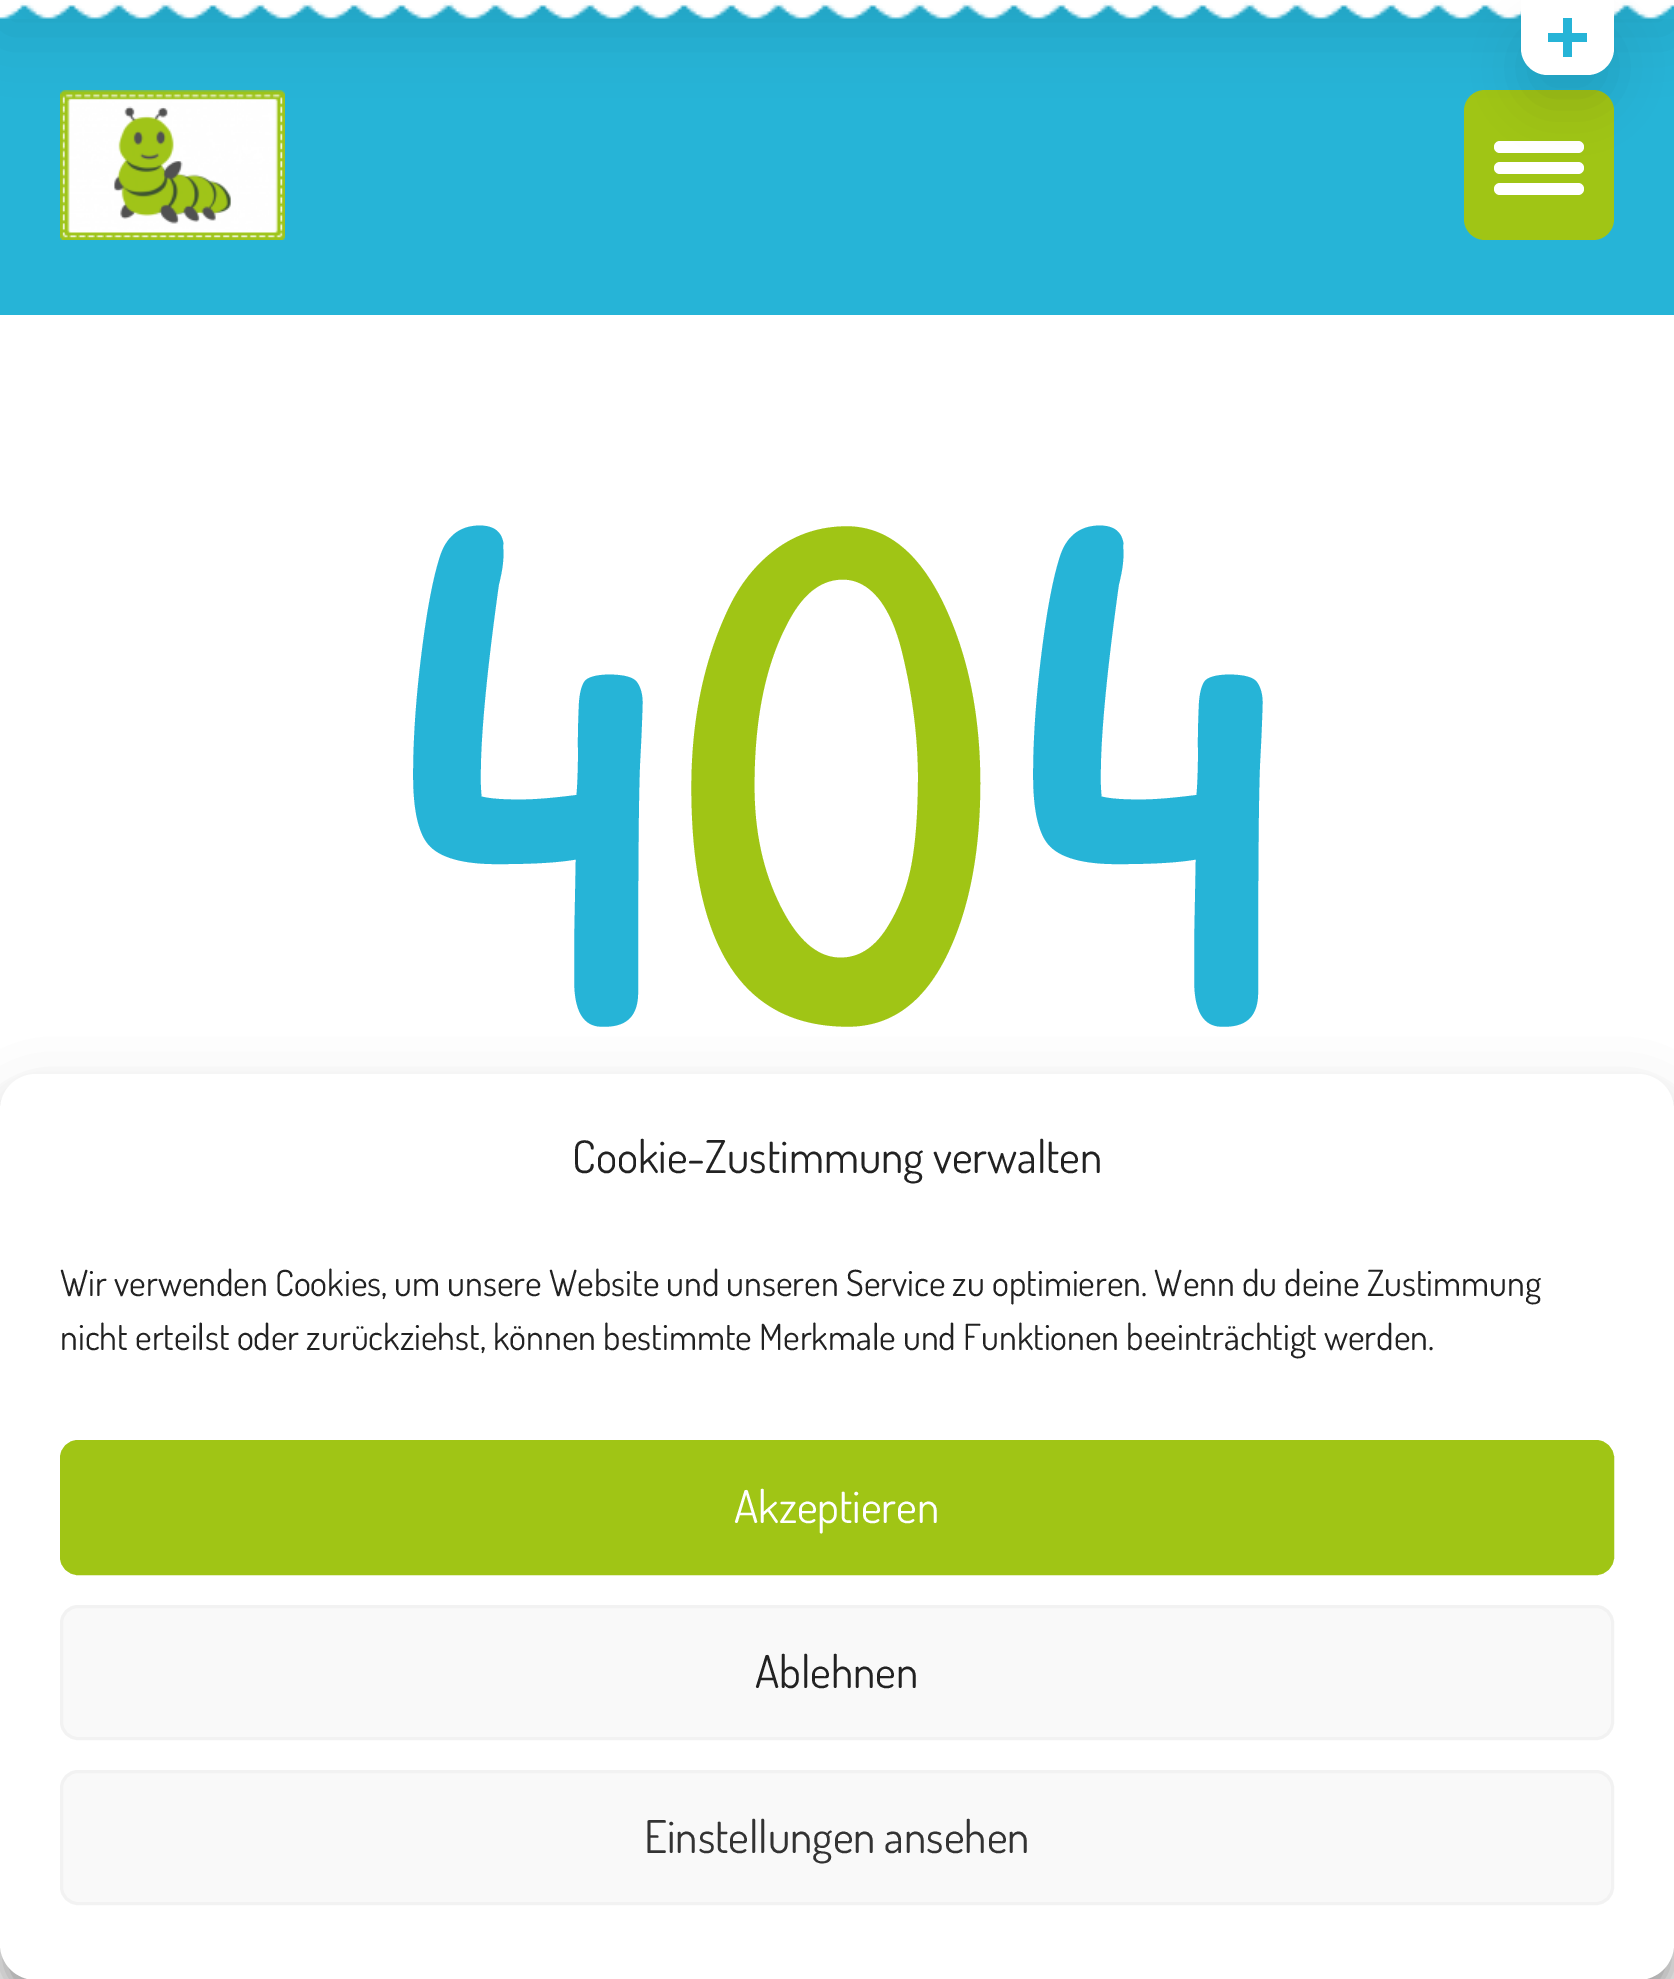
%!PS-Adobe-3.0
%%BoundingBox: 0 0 1674 1979
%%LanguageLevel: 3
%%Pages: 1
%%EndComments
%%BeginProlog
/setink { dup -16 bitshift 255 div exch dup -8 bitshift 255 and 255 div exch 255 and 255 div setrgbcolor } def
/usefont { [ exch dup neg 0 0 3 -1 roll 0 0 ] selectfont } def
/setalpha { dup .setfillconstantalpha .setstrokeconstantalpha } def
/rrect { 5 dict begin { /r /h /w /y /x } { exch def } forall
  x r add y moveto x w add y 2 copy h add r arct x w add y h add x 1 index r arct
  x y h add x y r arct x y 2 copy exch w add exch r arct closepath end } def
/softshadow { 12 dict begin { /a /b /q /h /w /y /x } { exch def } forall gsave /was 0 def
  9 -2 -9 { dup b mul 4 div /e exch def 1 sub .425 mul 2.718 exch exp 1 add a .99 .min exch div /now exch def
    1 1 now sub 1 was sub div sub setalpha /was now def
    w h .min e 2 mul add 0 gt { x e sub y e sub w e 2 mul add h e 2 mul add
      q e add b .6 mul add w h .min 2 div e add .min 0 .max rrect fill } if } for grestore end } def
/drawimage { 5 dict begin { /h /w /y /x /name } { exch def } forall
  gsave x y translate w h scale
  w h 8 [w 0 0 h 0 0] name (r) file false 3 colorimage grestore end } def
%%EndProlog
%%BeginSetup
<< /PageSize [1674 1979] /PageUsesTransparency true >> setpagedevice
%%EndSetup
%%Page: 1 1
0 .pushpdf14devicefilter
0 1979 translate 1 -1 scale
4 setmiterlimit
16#FFFFFF setink
0 0 1674 1979 rectfill
16#26B4D7 setink
0 2 1674 313 rectfill
(img2.raw) 60 90 225 150 drawimage
16#A0C515 setink
1464 90 150 150 21 rrect fill
16#000000 setink
0 -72 1674 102 0 30 0.1 softshadow
(img1.raw) 0 0 1674 19 drawimage
16#FFFFFF setink
1494 141 90 12 6 rrect fill
1494 162 90 12 6 rrect fill
16#000000 setink
1521 30 93 75 27 22.5 0.1 softshadow
16#FFFFFF setink
1521 0 moveto 1614 0 lineto 1614 48 lineto 1614 63 1602 75 1587 75 curveto 1548 75 lineto 1533 75 1521 63 1521 48 curveto closepath fill
16#26B4D7 setink
1548 33 39 9 rectfill
1563 18 9 39 rectfill
16#FFFFFF setink
1494 183 90 12 6 rrect fill
/PatrickHand-Regular 753 usefont
16#26B4D7 setink
386 1026 moveto (4) show
16#A0C515 setink
668 1026 moveto (0) show
16#26B4D7 setink
1006 1026 moveto (4) show
16#000000 setink
0 1092 1674 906 36 9 0.23 softshadow
0 1104 1674 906 36 30 0.19 softshadow
16#FFFFFF setink
0 1074 1674 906 36 rrect fill
/Dosis-Regular 45 usefont
16#222222 setink
572 1173 moveto (Cookie-Zustimmung verwalten) show
/Dosis-Regular 36 usefont
60 1296 moveto (Wir verwenden Cookies, um unsere Website und unseren Service zu optimieren. Wenn du deine Zustimmung) show
60 1350 moveto (nicht erteilst oder zurückziehst, können bestimmte Merkmale und Funktionen beeinträchtigt werden.) show
16#A0C515 setink
61.5 1441.5 1551 132 16.5 rrect gsave fill grestore
3 setlinewidth
stroke
/Dosis-Regular 45 usefont
16#FFFFFF setink
734 1523 moveto (Akzeptieren) show
16#F9F9F9 setink
61.5 1606.5 1551 132 16.5 rrect gsave fill grestore
16#F2F2F2 setink
stroke
16#222222 setink
755 1688 moveto (Ablehnen) show
16#F9F9F9 setink
61.5 1771.5 1551 132 16.5 rrect gsave fill grestore
16#F2F2F2 setink
stroke
16#333333 setink
644 1853 moveto (Einstellungen ansehen) show
.poppdf14devicefilter showpage
%%EOF
